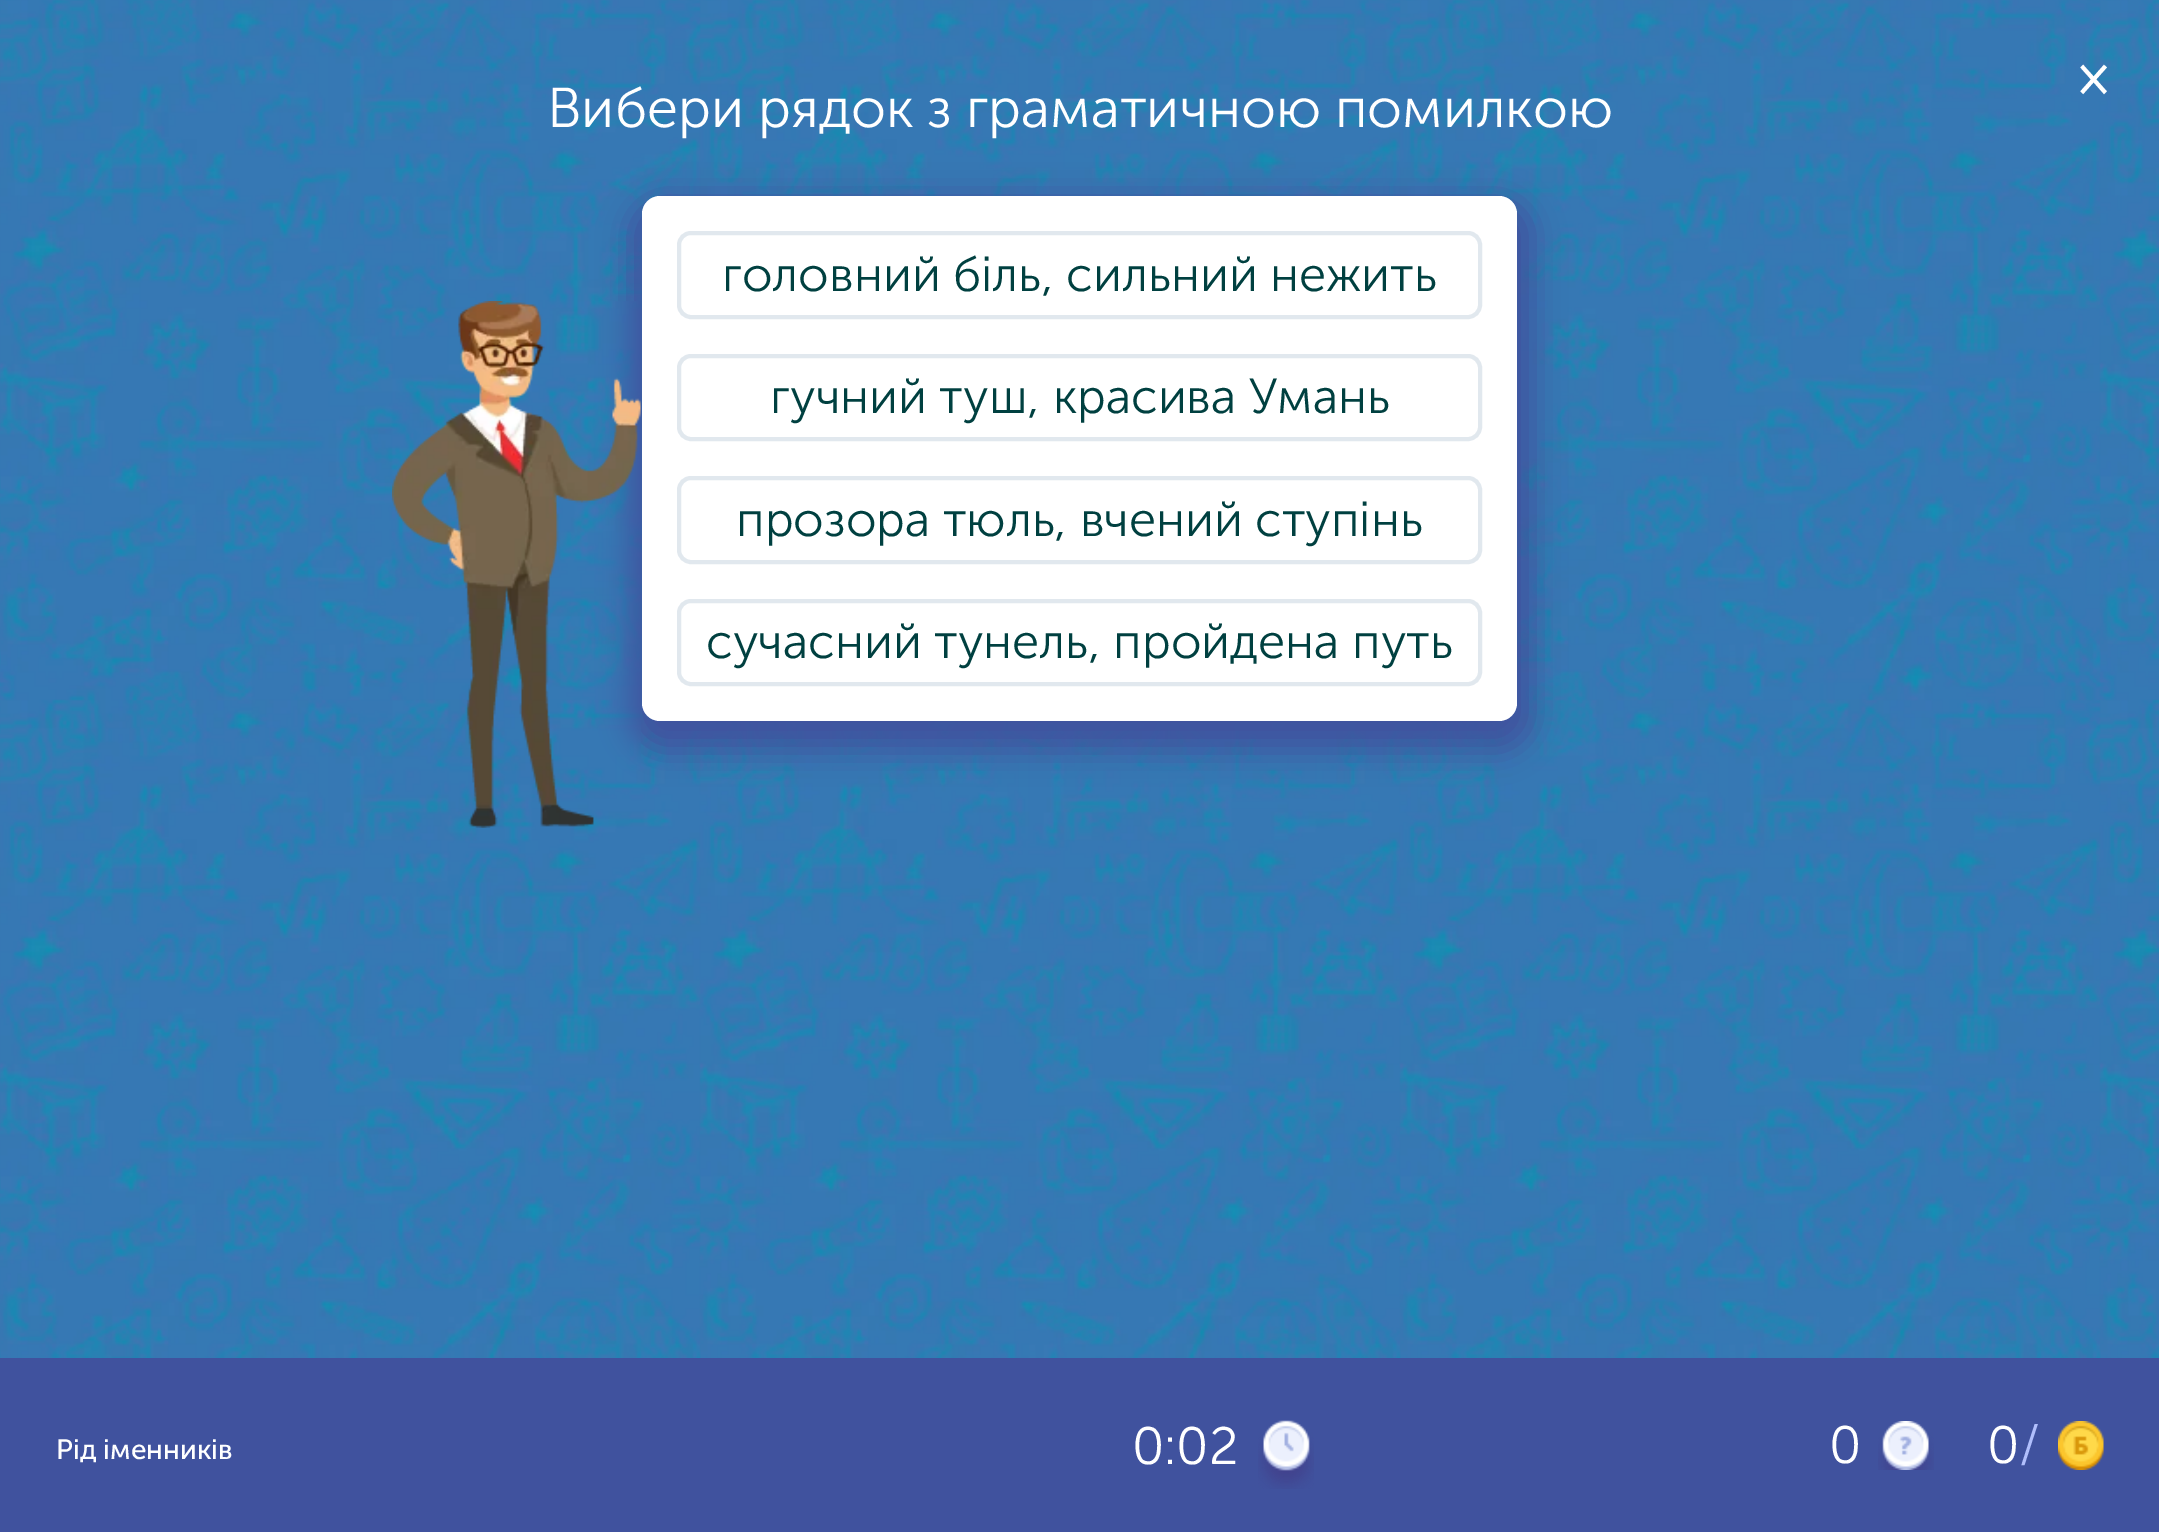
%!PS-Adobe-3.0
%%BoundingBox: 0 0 2159 1532
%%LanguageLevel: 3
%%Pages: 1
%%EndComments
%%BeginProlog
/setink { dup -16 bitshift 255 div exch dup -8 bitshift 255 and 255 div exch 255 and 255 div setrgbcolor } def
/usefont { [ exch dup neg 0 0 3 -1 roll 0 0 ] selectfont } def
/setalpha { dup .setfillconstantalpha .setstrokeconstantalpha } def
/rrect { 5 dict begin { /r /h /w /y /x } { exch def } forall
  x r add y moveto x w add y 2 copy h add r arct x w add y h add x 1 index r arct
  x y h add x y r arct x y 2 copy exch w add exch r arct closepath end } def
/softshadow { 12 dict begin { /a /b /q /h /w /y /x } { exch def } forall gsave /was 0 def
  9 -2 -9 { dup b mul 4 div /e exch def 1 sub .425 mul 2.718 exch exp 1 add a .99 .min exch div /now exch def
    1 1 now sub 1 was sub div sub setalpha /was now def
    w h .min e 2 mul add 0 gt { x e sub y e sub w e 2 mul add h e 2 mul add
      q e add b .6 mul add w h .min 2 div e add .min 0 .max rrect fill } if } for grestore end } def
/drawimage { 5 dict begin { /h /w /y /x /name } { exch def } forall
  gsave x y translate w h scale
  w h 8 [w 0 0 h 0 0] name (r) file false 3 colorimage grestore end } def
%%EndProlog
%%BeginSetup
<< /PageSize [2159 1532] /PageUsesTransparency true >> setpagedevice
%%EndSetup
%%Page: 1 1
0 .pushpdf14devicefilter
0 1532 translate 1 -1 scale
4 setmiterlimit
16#FFFFFF setink
0 0 2159 1532 rectfill
(img1.raw) 0 0 2159 1358 drawimage
/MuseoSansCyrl-Bold 49 usefont
2079 94 moveto (×) show
/MuseoSansCyrl-Light 56 usefont
547 127 moveto (Вибери рядок з граматичною помилкою) show
16#40529E setink
630 198 903 553 32 16 1 softshadow
16#FFFFFF setink
642 196 875 525 18 rrect fill
16#E1E8EE setink
4 setlinewidth
679 233 801 84 12 rrect stroke
/MuseoSansCyrl-Light 49 usefont
16#004040 setink
722 291 moveto (головний біль, сильний нежить) show
(img2.raw) 392 301 249 527 drawimage
16#E1E8EE setink
679 356 801 83 12 rrect stroke
16#004040 setink
770 413 moveto (гучний туш, красива Умань) show
16#E1E8EE setink
679 478 801 84 12 rrect stroke
16#004040 setink
736 536 moveto (прозора тюль, вчений ступінь) show
16#E1E8EE setink
679 601 801 83 12 rrect stroke
16#004040 setink
706 658 moveto (сучасний тунель, пройдена путь) show
16#40529E setink
0 1358 2159 174 rectfill
/MuseoSansCyrl-Regular 28 usefont
16#FFFFFF setink
56 1459 moveto (Рід іменників) show
/MuseoSansCyrl-Light 52.5 usefont
1132 1464 moveto (0:02) show
(img3.raw) 1258 1420 56 69 drawimage
1829 1463 moveto (0) show
(img4.raw) 1878 1421 56 49 drawimage
1987 1463 moveto (0) show
16#B1BFFC setink
2019 1463 moveto (/) show
(img5.raw) 2058 1421 46 49 drawimage
.poppdf14devicefilter showpage
%%EOF
